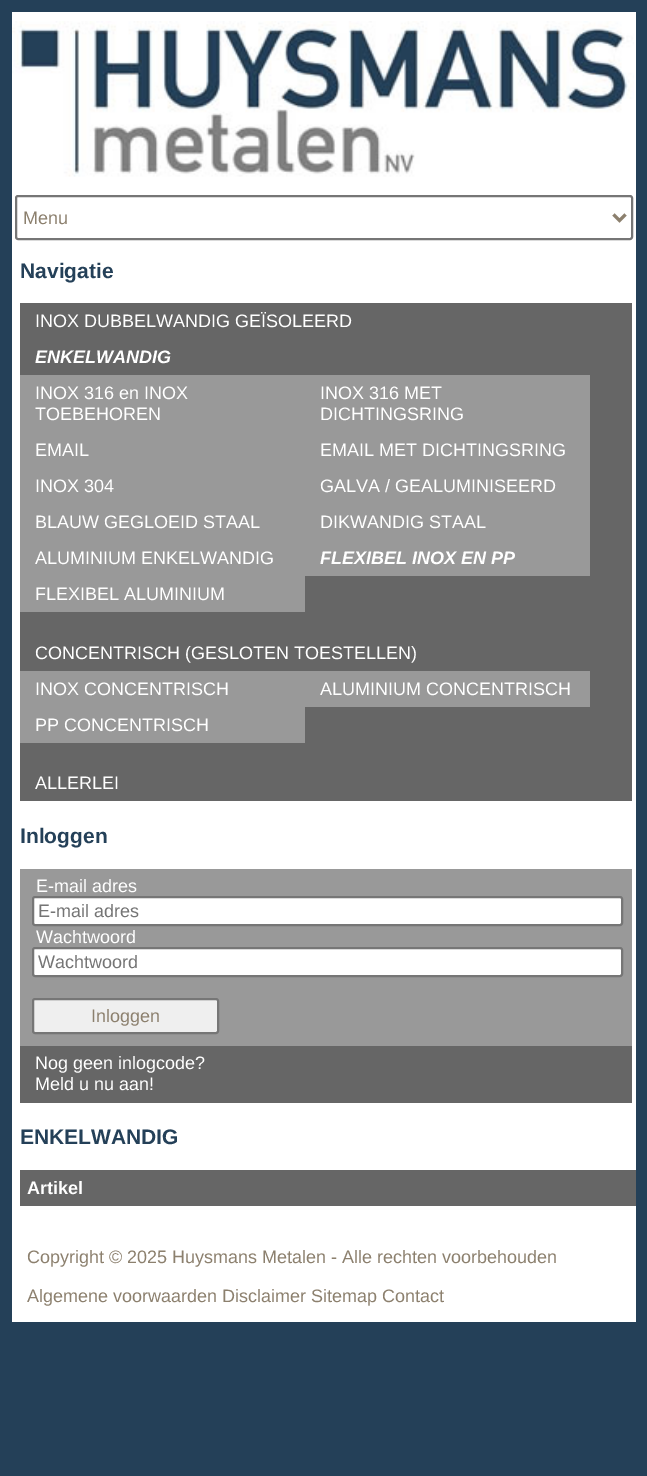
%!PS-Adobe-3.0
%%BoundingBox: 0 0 647 1476
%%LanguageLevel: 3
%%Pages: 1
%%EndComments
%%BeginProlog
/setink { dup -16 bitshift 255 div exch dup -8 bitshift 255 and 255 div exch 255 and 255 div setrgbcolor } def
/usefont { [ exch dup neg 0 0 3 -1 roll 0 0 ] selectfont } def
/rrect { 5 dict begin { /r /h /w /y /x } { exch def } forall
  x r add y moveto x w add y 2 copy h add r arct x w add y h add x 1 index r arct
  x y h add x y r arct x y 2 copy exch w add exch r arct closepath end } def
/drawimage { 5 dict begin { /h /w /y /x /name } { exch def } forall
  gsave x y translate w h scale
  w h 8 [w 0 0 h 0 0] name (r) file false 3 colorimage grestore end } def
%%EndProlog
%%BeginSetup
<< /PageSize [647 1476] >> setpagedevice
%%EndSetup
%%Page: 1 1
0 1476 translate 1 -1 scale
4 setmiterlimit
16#244058 setink
0 0 647 1476 rectfill
16#FFFFFF setink
12 12 624 1310 rectfill
(img1.raw) 12 21 622 156 drawimage
16#767676 setink
2 setlinewidth
16 196 616 43 2 rrect stroke
16#8C806E setink
3 setlinewidth
613.5 214.5 moveto 619.5 220.5 lineto 625.5 214.5 lineto stroke
/LiberationSans-Regular 18 usefont
23 224 moveto (Menu) show
/LiberationSans-Bold 21 usefont
16#244058 setink
20 278 moveto (Navigatie) show
16#666666 setink
20 303 612 498 rectfill
/LiberationSans-Regular 18 usefont
16#FFFFFF setink
35 327 moveto (INOX DUBBELWANDIG GEÏSOLEERD) show
/LiberationSans-BoldItalic 18 usefont
35 363 moveto (ENKELWANDIG) show
16#999999 setink
20 375 570 57 rectfill
/LiberationSans-Regular 18 usefont
16#FFFFFF setink
[
    [(INOX 316 en INOX) 35 399]
    [(TOEBEHOREN) 35 420]
    [(INOX 316 MET) 320 399]
    [(DICHTINGSRING) 320 420]
] { aload pop moveto show } forall
16#999999 setink
20 432 570 36 rectfill
16#FFFFFF setink
35 456 moveto (EMAIL) show
320 456 moveto (EMAIL MET DICHTINGSRING) show
16#999999 setink
20 468 570 36 rectfill
16#FFFFFF setink
35 492 moveto (INOX 304) show
320 492 moveto (GALVA / GEALUMINISEERD) show
16#999999 setink
20 504 570 36 rectfill
16#FFFFFF setink
35 528 moveto (BLAUW GEGLOEID STAAL) show
320 528 moveto (DIKWANDIG STAAL) show
16#999999 setink
20 540 570 36 rectfill
16#FFFFFF setink
35 564 moveto (ALUMINIUM ENKELWANDIG) show
/LiberationSans-BoldItalic 18 usefont
320 564 moveto (FLEXIBEL INOX EN PP) show
16#999999 setink
20 576 285 36 rectfill
/LiberationSans-Regular 18 usefont
16#FFFFFF setink
35 600 moveto (FLEXIBEL ALUMINIUM) show
35 659 moveto (CONCENTRISCH \(GESLOTEN TOESTELLEN\)) show
16#999999 setink
20 671 570 36 rectfill
16#FFFFFF setink
35 695 moveto (INOX CONCENTRISCH) show
320 695 moveto (ALUMINIUM CONCENTRISCH) show
16#999999 setink
20 707 285 36 rectfill
16#FFFFFF setink
35 731 moveto (PP CONCENTRISCH) show
35 789 moveto (ALLERLEI) show
/LiberationSans-Bold 21 usefont
16#244058 setink
20 843 moveto (Inloggen) show
16#999999 setink
20 869 612 177 rectfill
/LiberationSans-Regular 18 usefont
16#FFFFFF setink
36 892 moveto (E-mail adres) show
33 897 589 28 2 rrect gsave fill grestore
16#767676 setink
2 setlinewidth
stroke
16#757575 setink
38 917 moveto (E-mail adres) show
16#FFFFFF setink
36 943 moveto (Wachtwoord) show
33 948 589 28 2 rrect gsave fill grestore
16#767676 setink
stroke
16#757575 setink
38 968 moveto (Wachtwoord) show
16#EFEFEF setink
33 999 185 34 2 rrect gsave fill grestore
16#767676 setink
stroke
16#8C806E setink
91 1022 moveto (Inloggen) show
16#666666 setink
20 1046 612 57 rectfill
16#FFFFFF setink
35 1069 moveto (Nog geen inlogcode?) show
35 1090 moveto (Meld u nu aan!) show
/LiberationSans-Bold 21 usefont
16#244058 setink
20 1144 moveto (ENKELWANDIG) show
16#666666 setink
20 1170 616 36 rectfill
/LiberationSans-Bold 18 usefont
16#FFFFFF setink
27 1194 moveto (Artikel) show
/LiberationSans-Regular 18 usefont
16#8C806E setink
27 1263 moveto (Copyright © 2025 Huysmans Metalen - Alle rechten voorbehouden) show
27 1302 moveto (Algemene voorwaarden Disclaimer Sitemap Contact) show
showpage
%%EOF
